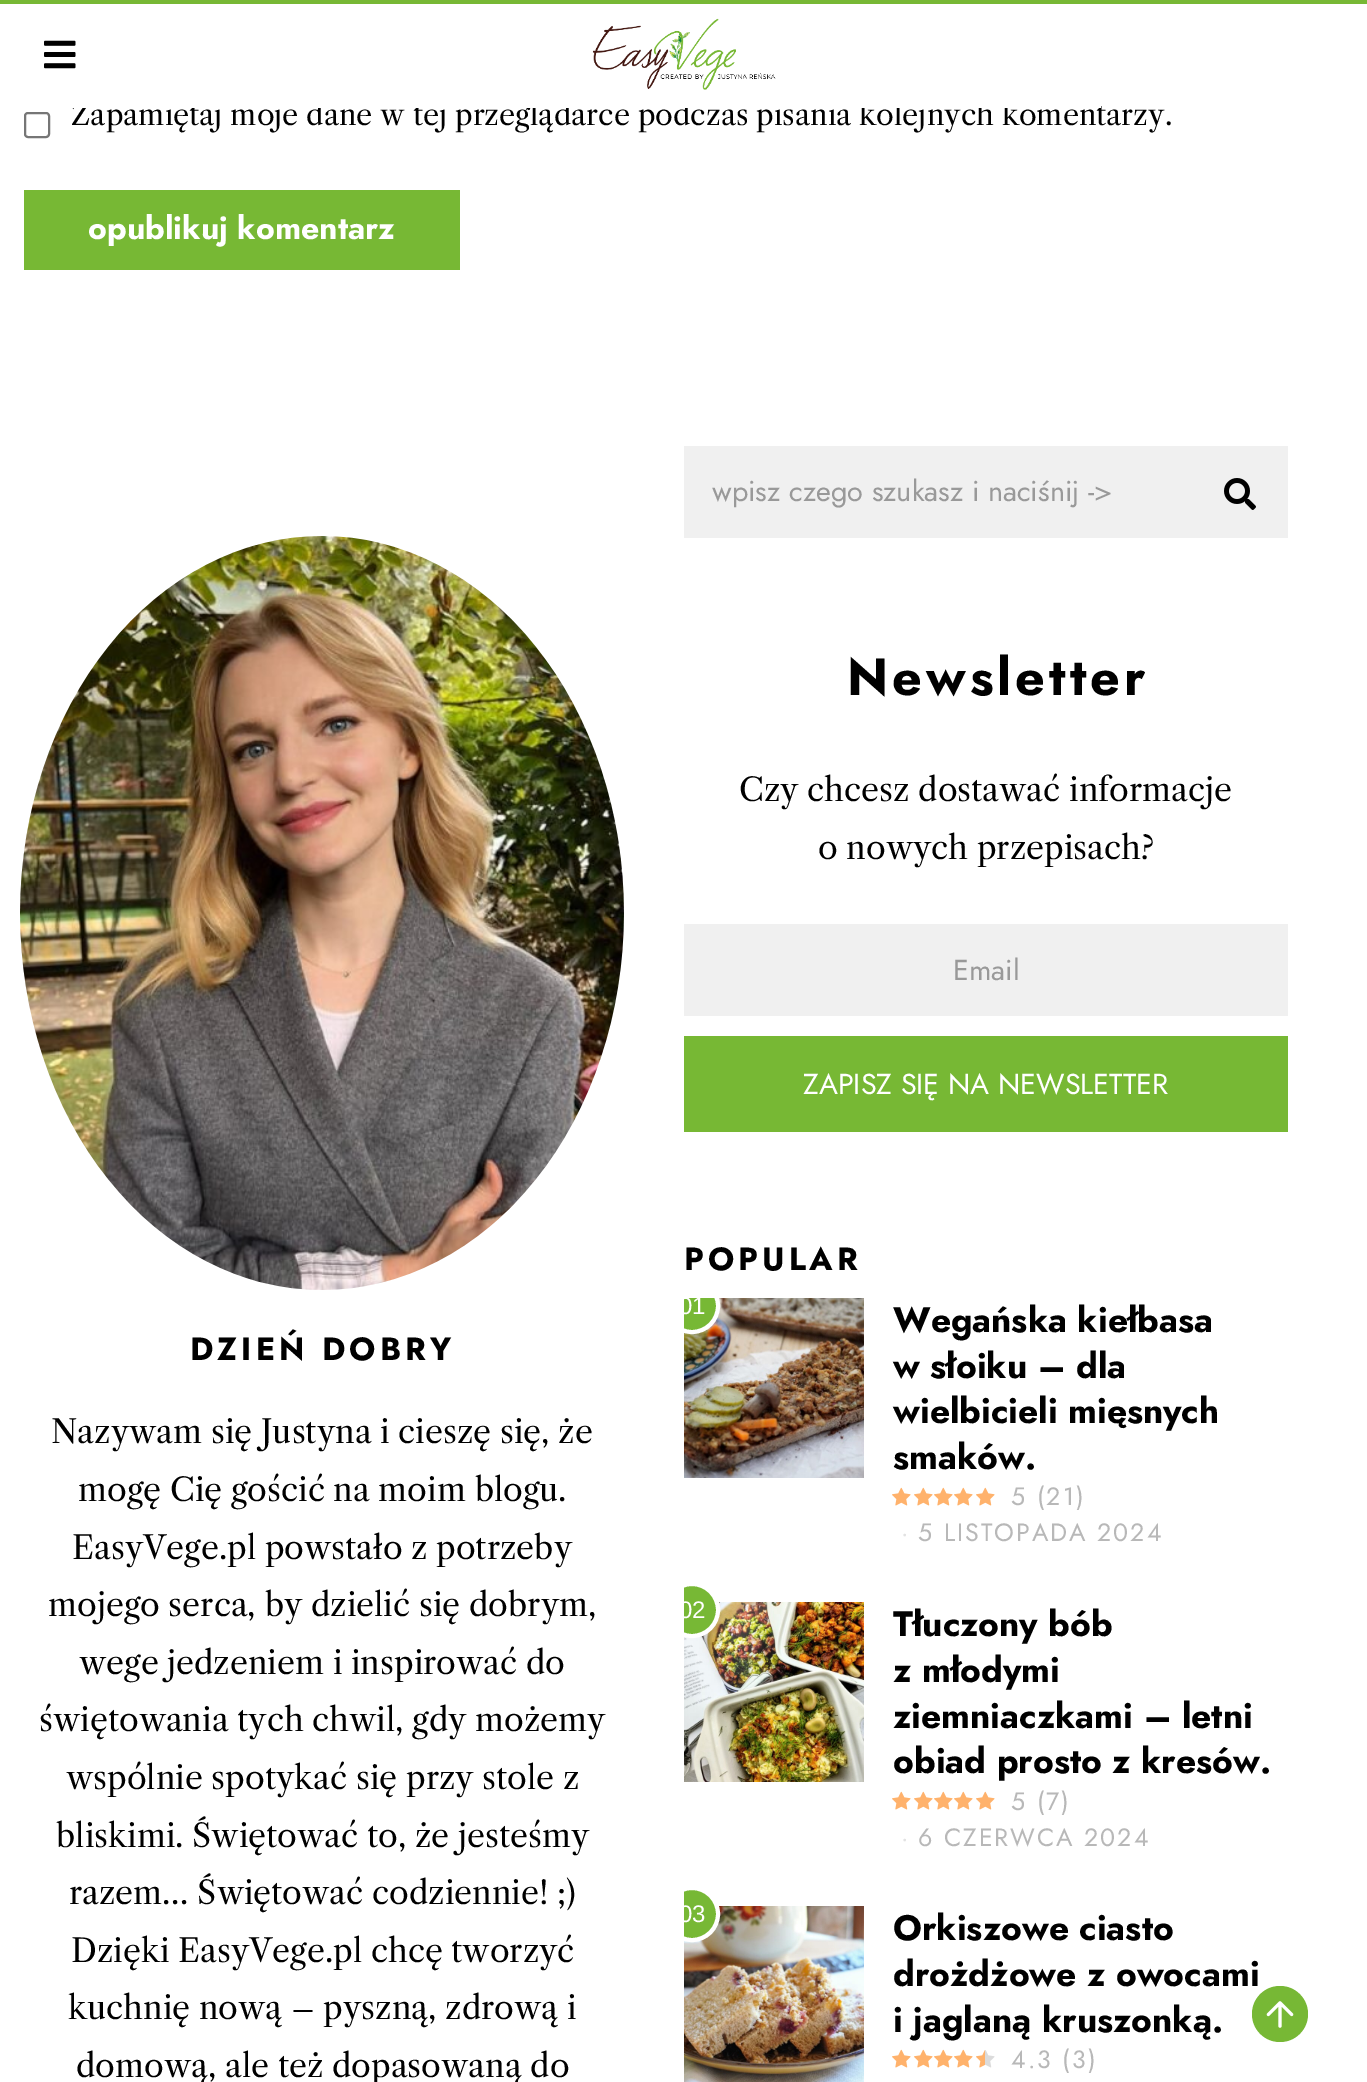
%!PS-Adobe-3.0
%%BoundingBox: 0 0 1367 2082
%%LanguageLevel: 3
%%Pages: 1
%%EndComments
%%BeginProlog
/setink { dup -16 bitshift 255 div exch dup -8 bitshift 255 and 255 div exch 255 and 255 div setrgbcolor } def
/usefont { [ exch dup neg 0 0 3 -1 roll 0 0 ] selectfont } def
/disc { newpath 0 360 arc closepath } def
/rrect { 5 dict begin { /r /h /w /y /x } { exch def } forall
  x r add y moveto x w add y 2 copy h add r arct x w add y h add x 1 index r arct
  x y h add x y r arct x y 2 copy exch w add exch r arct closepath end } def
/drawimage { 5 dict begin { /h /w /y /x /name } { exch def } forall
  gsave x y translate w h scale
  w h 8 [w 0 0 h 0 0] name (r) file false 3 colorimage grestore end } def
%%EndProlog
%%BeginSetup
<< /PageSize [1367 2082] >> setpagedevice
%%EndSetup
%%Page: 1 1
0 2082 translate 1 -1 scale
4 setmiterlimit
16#FFFFFF setink
0 0 1367 2082 rectfill
16#77B835 setink
0 0 1367 4 rectfill
(img1.raw) 44 40 32 29 drawimage
(img2.raw) 592 18 184 72 drawimage
/LibreCaslonText-Regular 28.8 usefont
16#000000 setink
71 125 moveto (Zapamiętaj moje dane w tej przeglądarce podczas pisania kolejnych komentarzy.) show
16#FFFFFF setink
72 101 1029 7 rectfill
16#767676 setink
2 setlinewidth
25 113 24 24 3 rrect stroke
16#77B834 setink
24 190 436 80 rectfill
/Jost-Bold 32 usefont
16#FFFFFF setink
88 239 moveto (opublikuj komentarz) show
16#F0F0F0 setink
684 446 604 92 rectfill
/Jost-Regular 28.8 usefont
16#999999 setink
712 501 moveto (wpisz czego szukasz i naciśnij ->) show
(img3.raw) 1224 478 32 32 drawimage
/Jost-Bold 52 usefont
16#000000 setink
847 695 moveto 4 0 (Newsletter) ashow
/LibreCaslonText-Regular 32 usefont
739 801 moveto (Czy chcesz dostawać informacje) show
818 859 moveto (o nowych przepisach?) show
16#F0F0F0 setink
684 924 604 92 rectfill
/Jost-Regular 28.8 usefont
16#999999 setink
953 980 moveto (Email) show
16#77B834 setink
684 1036 604 96 rectfill
16#FFFFFF setink
803 1094 moveto (ZAPISZ SIĘ NA NEWSLETTER) show
(img4.raw) 20 536 604 754 drawimage
/Jost-Bold 32 usefont
16#000000 setink
190 1360 moveto 4 0 (DZIEŃ DOBRY) ashow
/LibreCaslonText-Regular 32 usefont
[
    [(Nazywam się Justyna i cieszę się, że) 51 1443]
    [(mogę Cię gościć na moim blogu.) 78 1501]
    [(EasyVege.pl powstało z potrzeby) 72 1559]
    [(mojego serca, by dzielić się dobrym,) 48 1616]
    [(wege jedzeniem i inspirować do) 79 1674]
    [(świętowania tych chwil, gdy możemy) 39 1731]
    [(wspólnie spotykać się przy stole z) 66 1789]
    [(bliskimi. Świętować to, że jesteśmy) 56 1847]
    [(razem… Świętować codziennie! ;\)) 69 1904]
    [(Dzięki EasyVege.pl chcę tworzyć) 71 1962]
    [(kuchnię nową – pyszną, zdrową i) 68 2019]
    [(domową, ale też dopasowaną do) 76 2077]
] { aload pop moveto show } forall
/Jost-Bold 32 usefont
684 1270 moveto 4 0 (POPULAR) ashow
(img5.raw) 684 1298 180 180 drawimage
gsave
684 1298 604 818 rectclip
16#77B835 setink
692 1306 26 disc gsave fill grestore
16#FFFFFF setink
4 setlinewidth
stroke
/LiberationSans-Regular 24 usefont
679 1314 moveto (01) show
grestore
/Jost-Bold 35.25 usefont
[
    [(Wegańska kiełbasa) 893 1332]
    [(w słoiku – dla) 893 1378]
    [(wielbicieli mięsnych) 893 1423]
    [(smaków.) 893 1469]
] { aload pop moveto show } forall
(img6.raw) 892 1487 19 19 drawimage
(img6.raw) 914 1487 19 19 drawimage
(img6.raw) 934 1487 19 19 drawimage
(img6.raw) 954 1487 19 19 drawimage
(img6.raw) 976 1487 19 19 drawimage
/Jost-Regular 25 usefont
16#B8B8B8 setink
1011 1505 moveto 2 0 (5 \(21\)) ashow
16#E2E2E2 setink
901 1541 moveto 2 0 (·) ashow
16#B8B8B8 setink
918 1541 moveto 2 0 (5 LISTOPADA 2024) ashow
(img7.raw) 684 1602 180 180 drawimage
gsave
684 1298 604 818 rectclip
16#77B835 setink
692 1610 26 disc gsave fill grestore
16#FFFFFF setink
4 setlinewidth
stroke
/LiberationSans-Regular 24 usefont
679 1618 moveto (02) show
grestore
/Jost-Bold 35.25 usefont
16#000000 setink
[
    [(Tłuczony bób) 893 1636]
    [(z młodymi) 893 1682]
    [(ziemniaczkami – letni) 893 1728]
    [(obiad prosto z kresów.) 893 1773]
] { aload pop moveto show } forall
(img6.raw) 892 1791 19 19 drawimage
(img6.raw) 914 1791 19 19 drawimage
(img6.raw) 934 1791 19 19 drawimage
(img6.raw) 954 1791 19 19 drawimage
(img6.raw) 976 1791 19 19 drawimage
/Jost-Regular 25 usefont
16#B8B8B8 setink
1011 1810 moveto 2 0 (5 \(7\)) ashow
16#E2E2E2 setink
901 1846 moveto 2 0 (·) ashow
16#B8B8B8 setink
918 1846 moveto 2 0 (6 CZERWCA 2024) ashow
(img8.raw) 684 1906 180 176 drawimage
gsave
684 1298 604 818 rectclip
16#77B835 setink
692 1914 26 disc gsave fill grestore
16#FFFFFF setink
4 setlinewidth
stroke
/LiberationSans-Regular 24 usefont
679 1922 moveto (03) show
grestore
/Jost-Bold 35.25 usefont
16#000000 setink
[
    [(Orkiszowe ciasto) 893 1940]
    [(drożdżowe z owocami) 893 1986]
    [(i jaglaną kruszonką.) 893 2032]
] { aload pop moveto show } forall
(img6.raw) 892 2049 19 19 drawimage
(img6.raw) 914 2049 19 19 drawimage
(img6.raw) 934 2049 19 19 drawimage
(img6.raw) 954 2049 19 19 drawimage
(img9.raw) 976 2050 19 18 drawimage
/Jost-Regular 25 usefont
16#B8B8B8 setink
1011 2068 moveto 2 0 (4.3 \(3\)) ashow
16#77B835 setink
1280 2014 28 disc fill
(img10.raw) 1266 2001 28 27 drawimage
showpage
%%EOF
